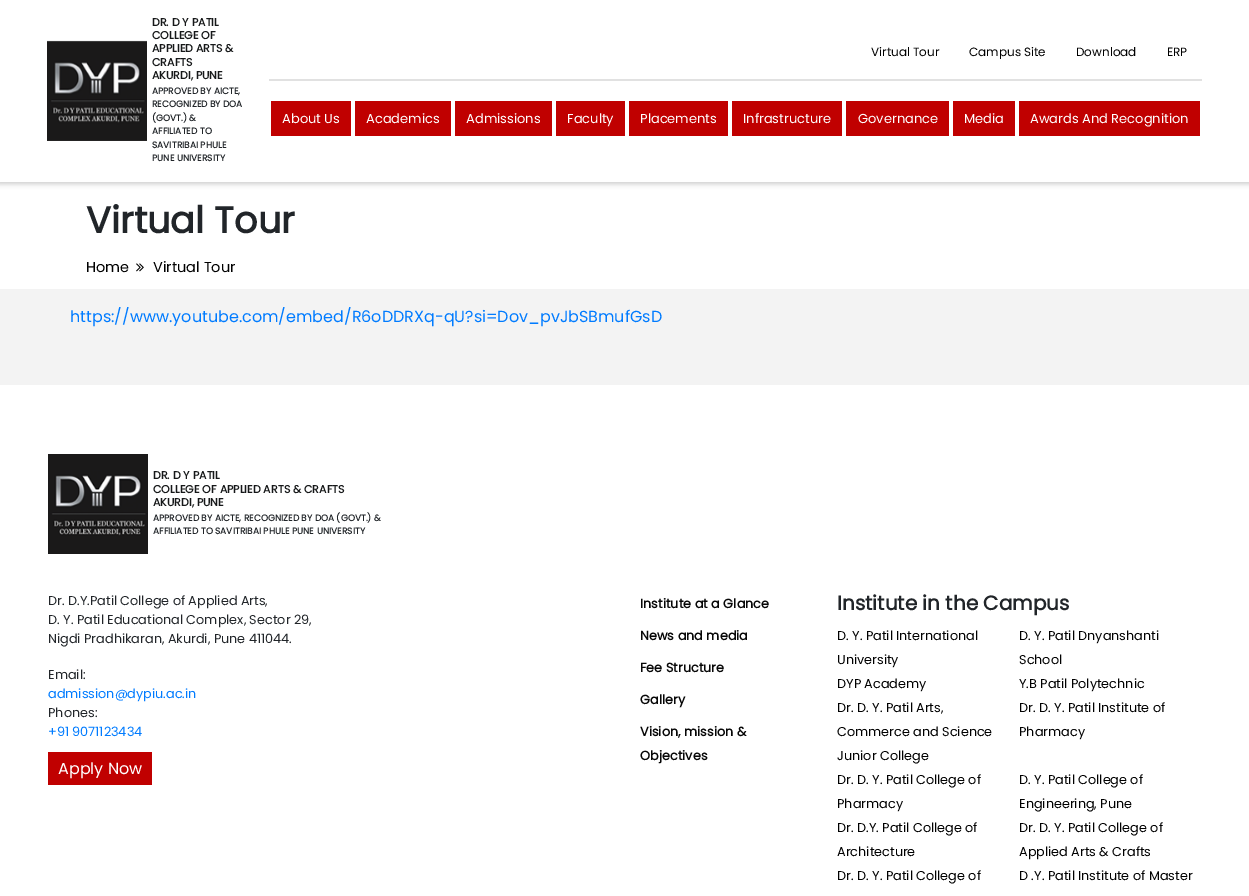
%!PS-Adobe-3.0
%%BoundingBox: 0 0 1249 896
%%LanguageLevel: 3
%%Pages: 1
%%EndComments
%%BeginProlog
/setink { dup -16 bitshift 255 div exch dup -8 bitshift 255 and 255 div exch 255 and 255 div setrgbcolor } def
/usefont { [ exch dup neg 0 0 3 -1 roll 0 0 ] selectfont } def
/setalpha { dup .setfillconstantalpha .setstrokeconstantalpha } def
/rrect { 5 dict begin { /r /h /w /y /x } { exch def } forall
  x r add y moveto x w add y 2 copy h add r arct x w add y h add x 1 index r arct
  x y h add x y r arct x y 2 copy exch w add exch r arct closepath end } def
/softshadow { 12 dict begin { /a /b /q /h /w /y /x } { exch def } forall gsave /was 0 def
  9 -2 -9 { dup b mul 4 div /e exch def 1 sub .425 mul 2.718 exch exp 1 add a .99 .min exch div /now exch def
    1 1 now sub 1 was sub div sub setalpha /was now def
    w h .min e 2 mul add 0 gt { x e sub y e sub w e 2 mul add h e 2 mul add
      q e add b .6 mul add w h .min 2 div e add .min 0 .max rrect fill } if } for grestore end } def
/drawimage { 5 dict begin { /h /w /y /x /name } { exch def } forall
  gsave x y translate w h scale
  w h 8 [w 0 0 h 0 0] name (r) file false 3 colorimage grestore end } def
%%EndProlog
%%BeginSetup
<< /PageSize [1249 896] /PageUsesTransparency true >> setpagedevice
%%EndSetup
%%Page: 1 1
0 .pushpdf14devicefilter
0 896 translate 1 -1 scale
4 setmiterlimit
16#F3F3F3 setink
0 0 1249 896 rectfill
16#FFFFFF setink
0 182 1249 107 rectfill
16#CCCCCC setink
-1 0 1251 184 0 2.5 1 softshadow
16#FFFFFF setink
0 0 1249 182 rectfill
(img1.raw) 47 40 100 101 drawimage
/Poppins-Bold 11 usefont
16#161819 setink
[
    [(DR. D Y PATIL) 152 26]
    [(COLLEGE OF) 152 39]
    [(APPLIED ARTS &) 152 52]
    [(CRAFTS) 152 66]
    [(AKURDI, PUNE) 152 79]
] { aload pop moveto show } forall
/Poppins-Bold 9 usefont
16#212529 setink
[
    [(APPROVED BY AICTE,) 152 94]
    [(RECOGNIZED BY DOA) 152 107]
    [(\(GOVT.\) &) 152 121]
    [(AFFILIATED TO) 152 134]
    [(SAVITRIBAI PHULE) 152 148]
    [(PUNE UNIVERSITY) 152 161]
] { aload pop moveto show } forall
/Poppins-Regular 12 usefont
16#000000 setink
[
    [(Virtual Tour) 871 56]
    [(Campus Site) 969 56]
    [(Download) 1076 56]
    [(ERP) 1167 56]
] { aload pop moveto show } forall
16#E1E1E1 setink
269 79 933 2 rectfill
16#C00000 setink
271 101 80 35 rectfill
/Poppins-Regular 13 usefont
16#FFFFFF setink
282 123 moveto (About Us) show
16#C00000 setink
355 101 96 35 rectfill
16#FFFFFF setink
366 123 moveto (Academics) show
16#C00000 setink
455 101 97 35 rectfill
16#FFFFFF setink
466 123 moveto (Admissions) show
16#C00000 setink
556 101 69 35 rectfill
16#FFFFFF setink
567 123 moveto (Faculty) show
16#C00000 setink
629 101 99 35 rectfill
16#FFFFFF setink
640 123 moveto (Placements) show
16#C00000 setink
732 101 110 35 rectfill
16#FFFFFF setink
743 123 moveto (Infrastructure) show
16#C00000 setink
846 101 103 35 rectfill
16#FFFFFF setink
858 123 moveto (Governance) show
16#C00000 setink
953 101 62 35 rectfill
16#FFFFFF setink
964 123 moveto (Media) show
16#C00000 setink
1019 101 181 35 rectfill
16#FFFFFF setink
1030 123 moveto (Awards And Recognition) show
/Poppins-Bold 36.75 usefont
16#212529 setink
86 233 moveto (Virtual Tour) show
/Poppins-Regular 14.5 usefont
16#000000 setink
86 272 moveto (Home) show
(img2.raw) 136 263 8 9 drawimage
153 272 moveto (Virtual Tour) show
/Poppins-Regular 16 usefont
16#007BFF setink
70 322 moveto (https://www.youtube.com/embed/R6oDDRXq-qU?si=Dov_pvJbSBmufGsD) show
16#FFFFFF setink
0 385 1249 511 rectfill
(img3.raw) 48 454 100 100 drawimage
/Poppins-Bold 11 usefont
16#161819 setink
[
    [(DR. D Y PATIL) 153 479]
    [(COLLEGE OF APPLIED ARTS & CRAFTS) 153 493]
    [(AKURDI, PUNE) 153 506]
] { aload pop moveto show } forall
/Poppins-Bold 9 usefont
16#212529 setink
153 521 moveto (APPROVED BY AICTE, RECOGNIZED BY DOA \(GOVT.\) &) show
153 534 moveto (AFFILIATED TO SAVITRIBAI PHULE PUNE UNIVERSITY) show
/Poppins-Regular 12.8 usefont
[
    [(Dr. D.Y.Patil College of Applied Arts,) 48 605]
    [(D. Y. Patil Educational Complex, Sector 29,) 48 624]
    [(Nigdi Pradhikaran, Akurdi, Pune 411044.) 48 643]
    [(Email:) 48 679]
] { aload pop moveto show } forall
16#007BFF setink
48 698 moveto (admission@dypiu.ac.in) show
16#212529 setink
48 717 moveto (Phones:) show
16#007BFF setink
48 736 moveto (+91 9071123434) show
16#C00000 setink
48 752 104 33 rectfill
/Poppins-Regular 16 usefont
16#FFFFFF setink
58 774 moveto (Apply Now) show
/Poppins-Bold 12.8 usefont
16#060606 setink
[
    [(Institute at a Glance) 640 608]
    [(News and media) 640 640]
    [(Fee Structure) 640 672]
    [(Gallery) 640 704]
    [(Vision, mission &) 640 736]
    [(Objectives) 640 760]
] { aload pop moveto show } forall
/Poppins-Bold 20 usefont
16#212529 setink
837 610 moveto (Institute in the Campus) show
/Poppins-Regular 12.8 usefont
16#000000 setink
[
    [(D. Y. Patil International) 837 640]
    [(University) 837 664]
    [(D. Y. Patil Dnyanshanti) 1019 640]
    [(School) 1019 664]
    [(DYP Academy) 837 688]
    [(Y.B Patil Polytechnic) 1019 688]
    [(Dr. D. Y. Patil Arts,) 837 712]
    [(Commerce and Science) 837 736]
    [(Junior College) 837 760]
    [(Dr. D. Y. Patil Institute of) 1019 712]
    [(Pharmacy) 1019 736]
    [(Dr. D. Y. Patil College of) 837 784]
    [(Pharmacy) 837 808]
    [(D. Y. Patil College of) 1019 784]
    [(Engineering, Pune) 1019 808]
    [(Dr. D.Y. Patil College of) 837 832]
    [(Architecture) 837 856]
    [(Dr. D. Y. Patil College of) 1019 832]
    [(Applied Arts & Crafts) 1019 856]
    [(Dr. D. Y. Patil College of) 837 880]
    [(D .Y. Patil Institute of Master) 1019 880]
] { aload pop moveto show } forall
.poppdf14devicefilter showpage
%%EOF
